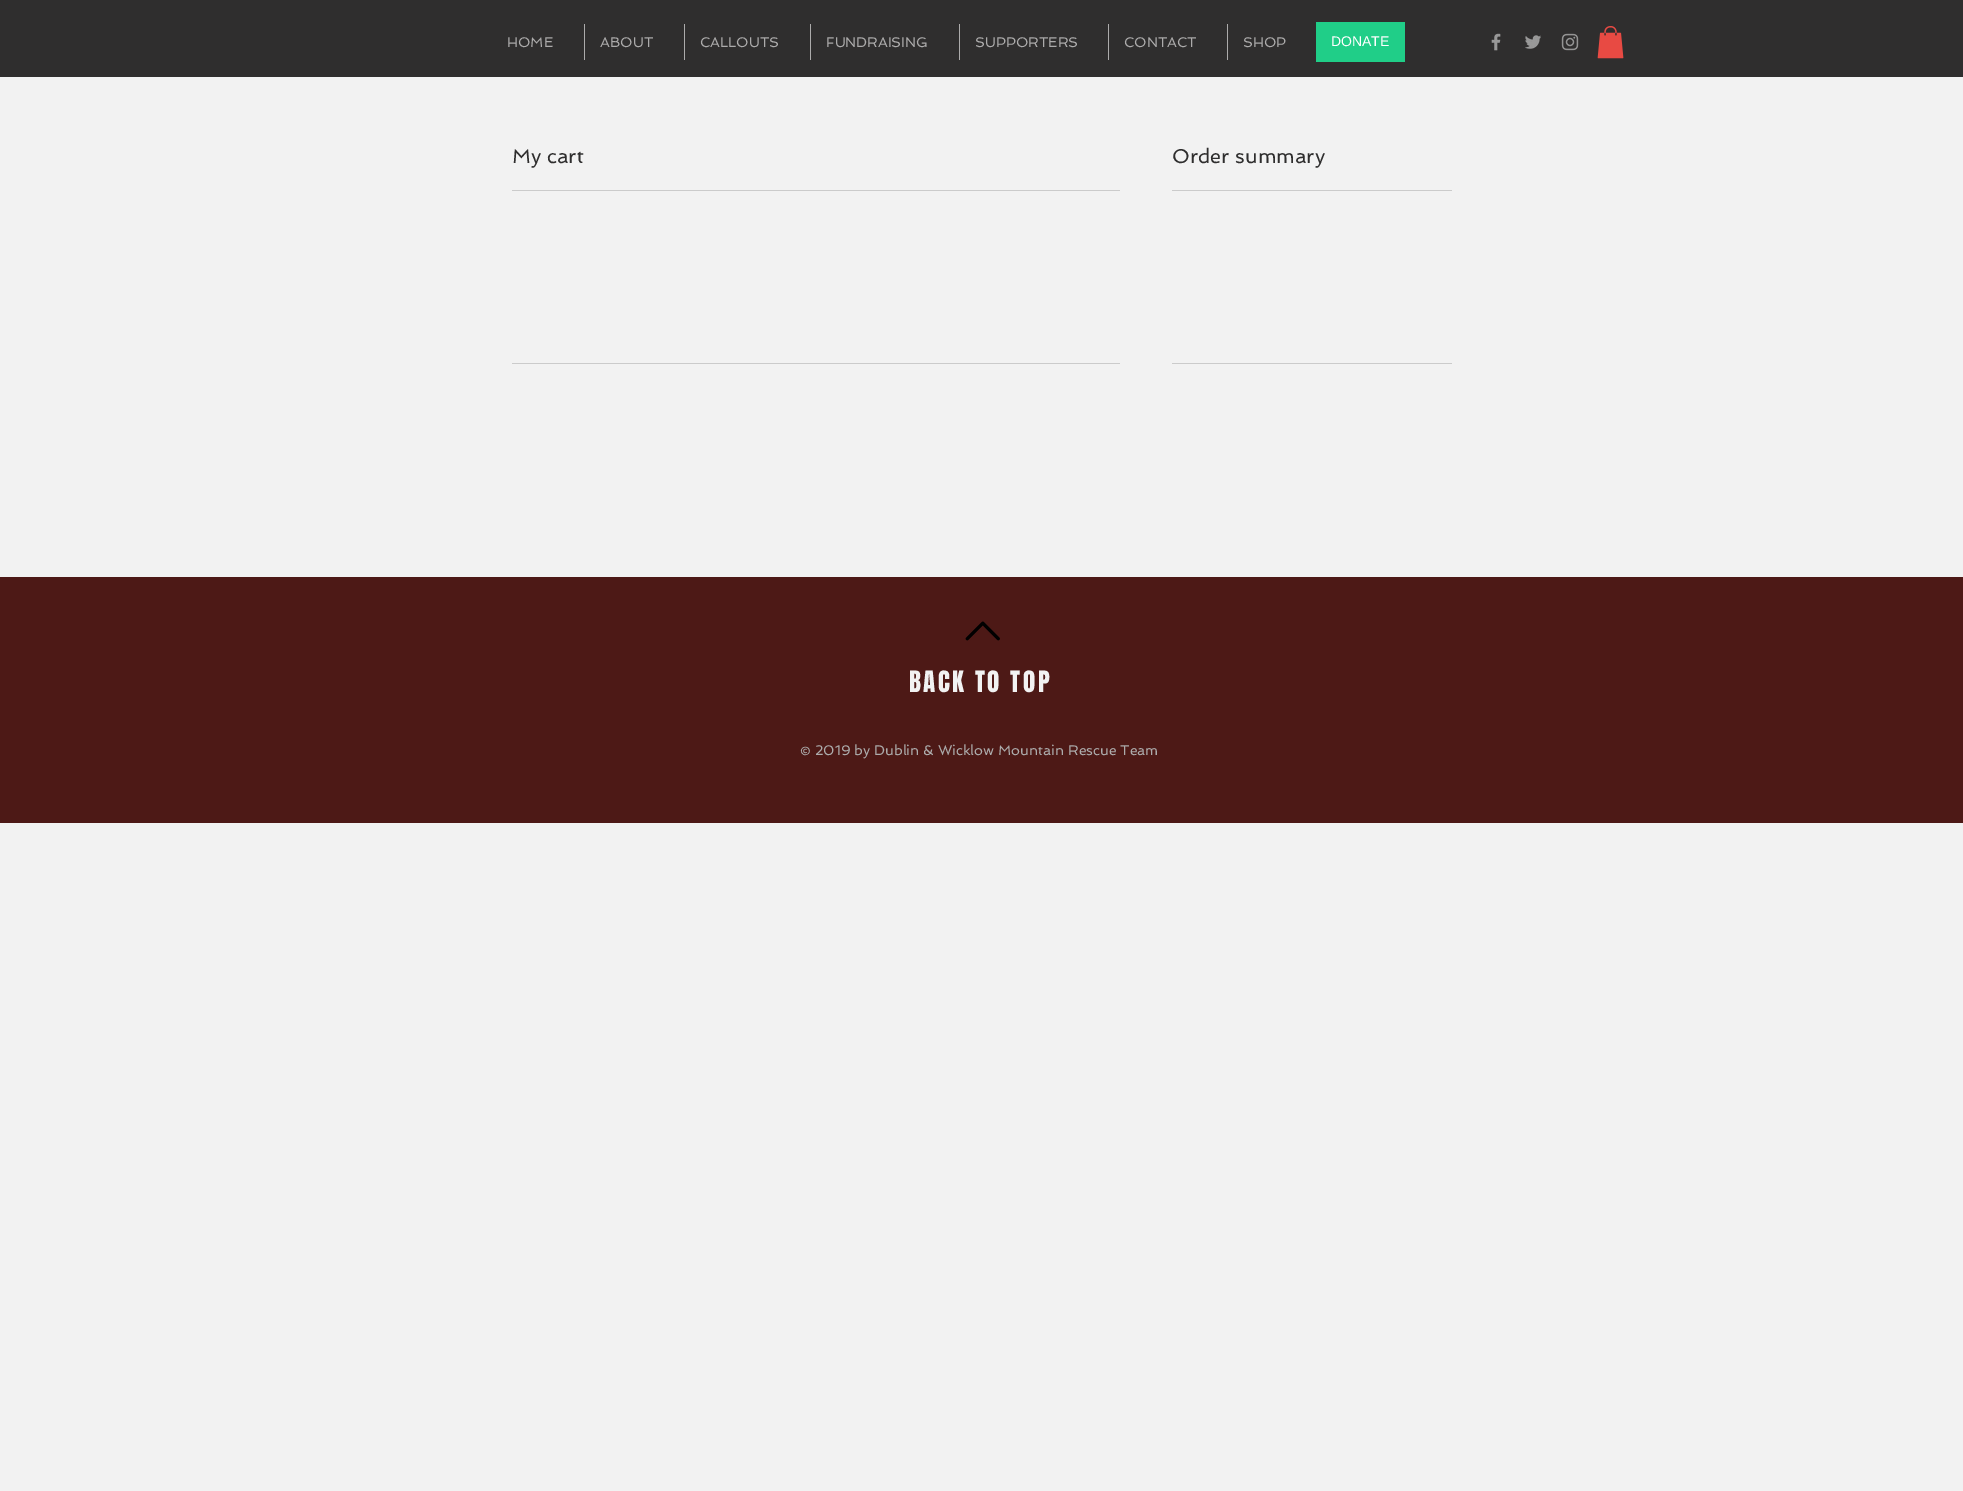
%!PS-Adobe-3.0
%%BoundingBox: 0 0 1963 1491
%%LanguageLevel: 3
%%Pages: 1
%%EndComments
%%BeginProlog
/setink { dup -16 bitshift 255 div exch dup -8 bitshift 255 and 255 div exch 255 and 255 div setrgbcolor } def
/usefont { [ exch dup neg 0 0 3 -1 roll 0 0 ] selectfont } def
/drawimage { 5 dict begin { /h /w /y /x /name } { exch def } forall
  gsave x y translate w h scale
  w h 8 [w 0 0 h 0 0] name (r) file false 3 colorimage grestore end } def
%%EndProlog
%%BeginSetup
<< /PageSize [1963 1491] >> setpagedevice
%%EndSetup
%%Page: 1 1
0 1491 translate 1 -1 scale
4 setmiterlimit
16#F2F2F2 setink
0 0 1963 1491 rectfill
16#2F2E2E setink
0 0 1963 77 rectfill
/Spinnaker-Regular 14 usefont
16#ACABAB setink
507 47 moveto (HOME) show
584 24 1 36 rectfill
600 47 moveto (ABOUT) show
684 24 1 36 rectfill
700 47 moveto (CALLOUTS) show
810 24 1 36 rectfill
826 47 moveto (FUNDRAISING) show
959 24 1 36 rectfill
975 47 moveto (SUPPORTERS) show
1108 24 1 36 rectfill
1124 47 moveto (CONTACT) show
1227 24 1 36 rectfill
1243 47 moveto (SHOP) show
16#20CE88 setink
1316 22 89 40 rectfill
/LiberationSans-Regular 14 usefont
16#FFFFFF setink
1331 46 moveto (DONATE) show
(img1.raw) 1491 33 10 18 drawimage
(img2.raw) 1525 35 16 14 drawimage
(img3.raw) 1561 33 18 18 drawimage
(img4.raw) 1597 26 27 33 drawimage
16#CBCBCB setink
512 190 608 1 rectfill
/Spinnaker-Regular 20 usefont
16#2F2E2E setink
512 163 moveto (My cart) show
16#CBCBCB setink
512 363 608 1 rectfill
1172 190 280 1 rectfill
16#2F2E2E setink
1172 163 moveto (Order summary) show
16#CBCBCB setink
1172 363 280 1 rectfill
16#4D1916 setink
0 577 1963 246 rectfill
(img5.raw) 965 621 35 20 drawimage
/Anton-Regular 25 usefont
16#F2F2F2 setink
909 692 moveto 2.5 0 (BACK TO TOP) ashow
/Spinnaker-Regular 14 usefont
16#ACABAB setink
800 755 moveto (© 2019 by Dublin & Wicklow Mountain Rescue Team) show
showpage
%%EOF
